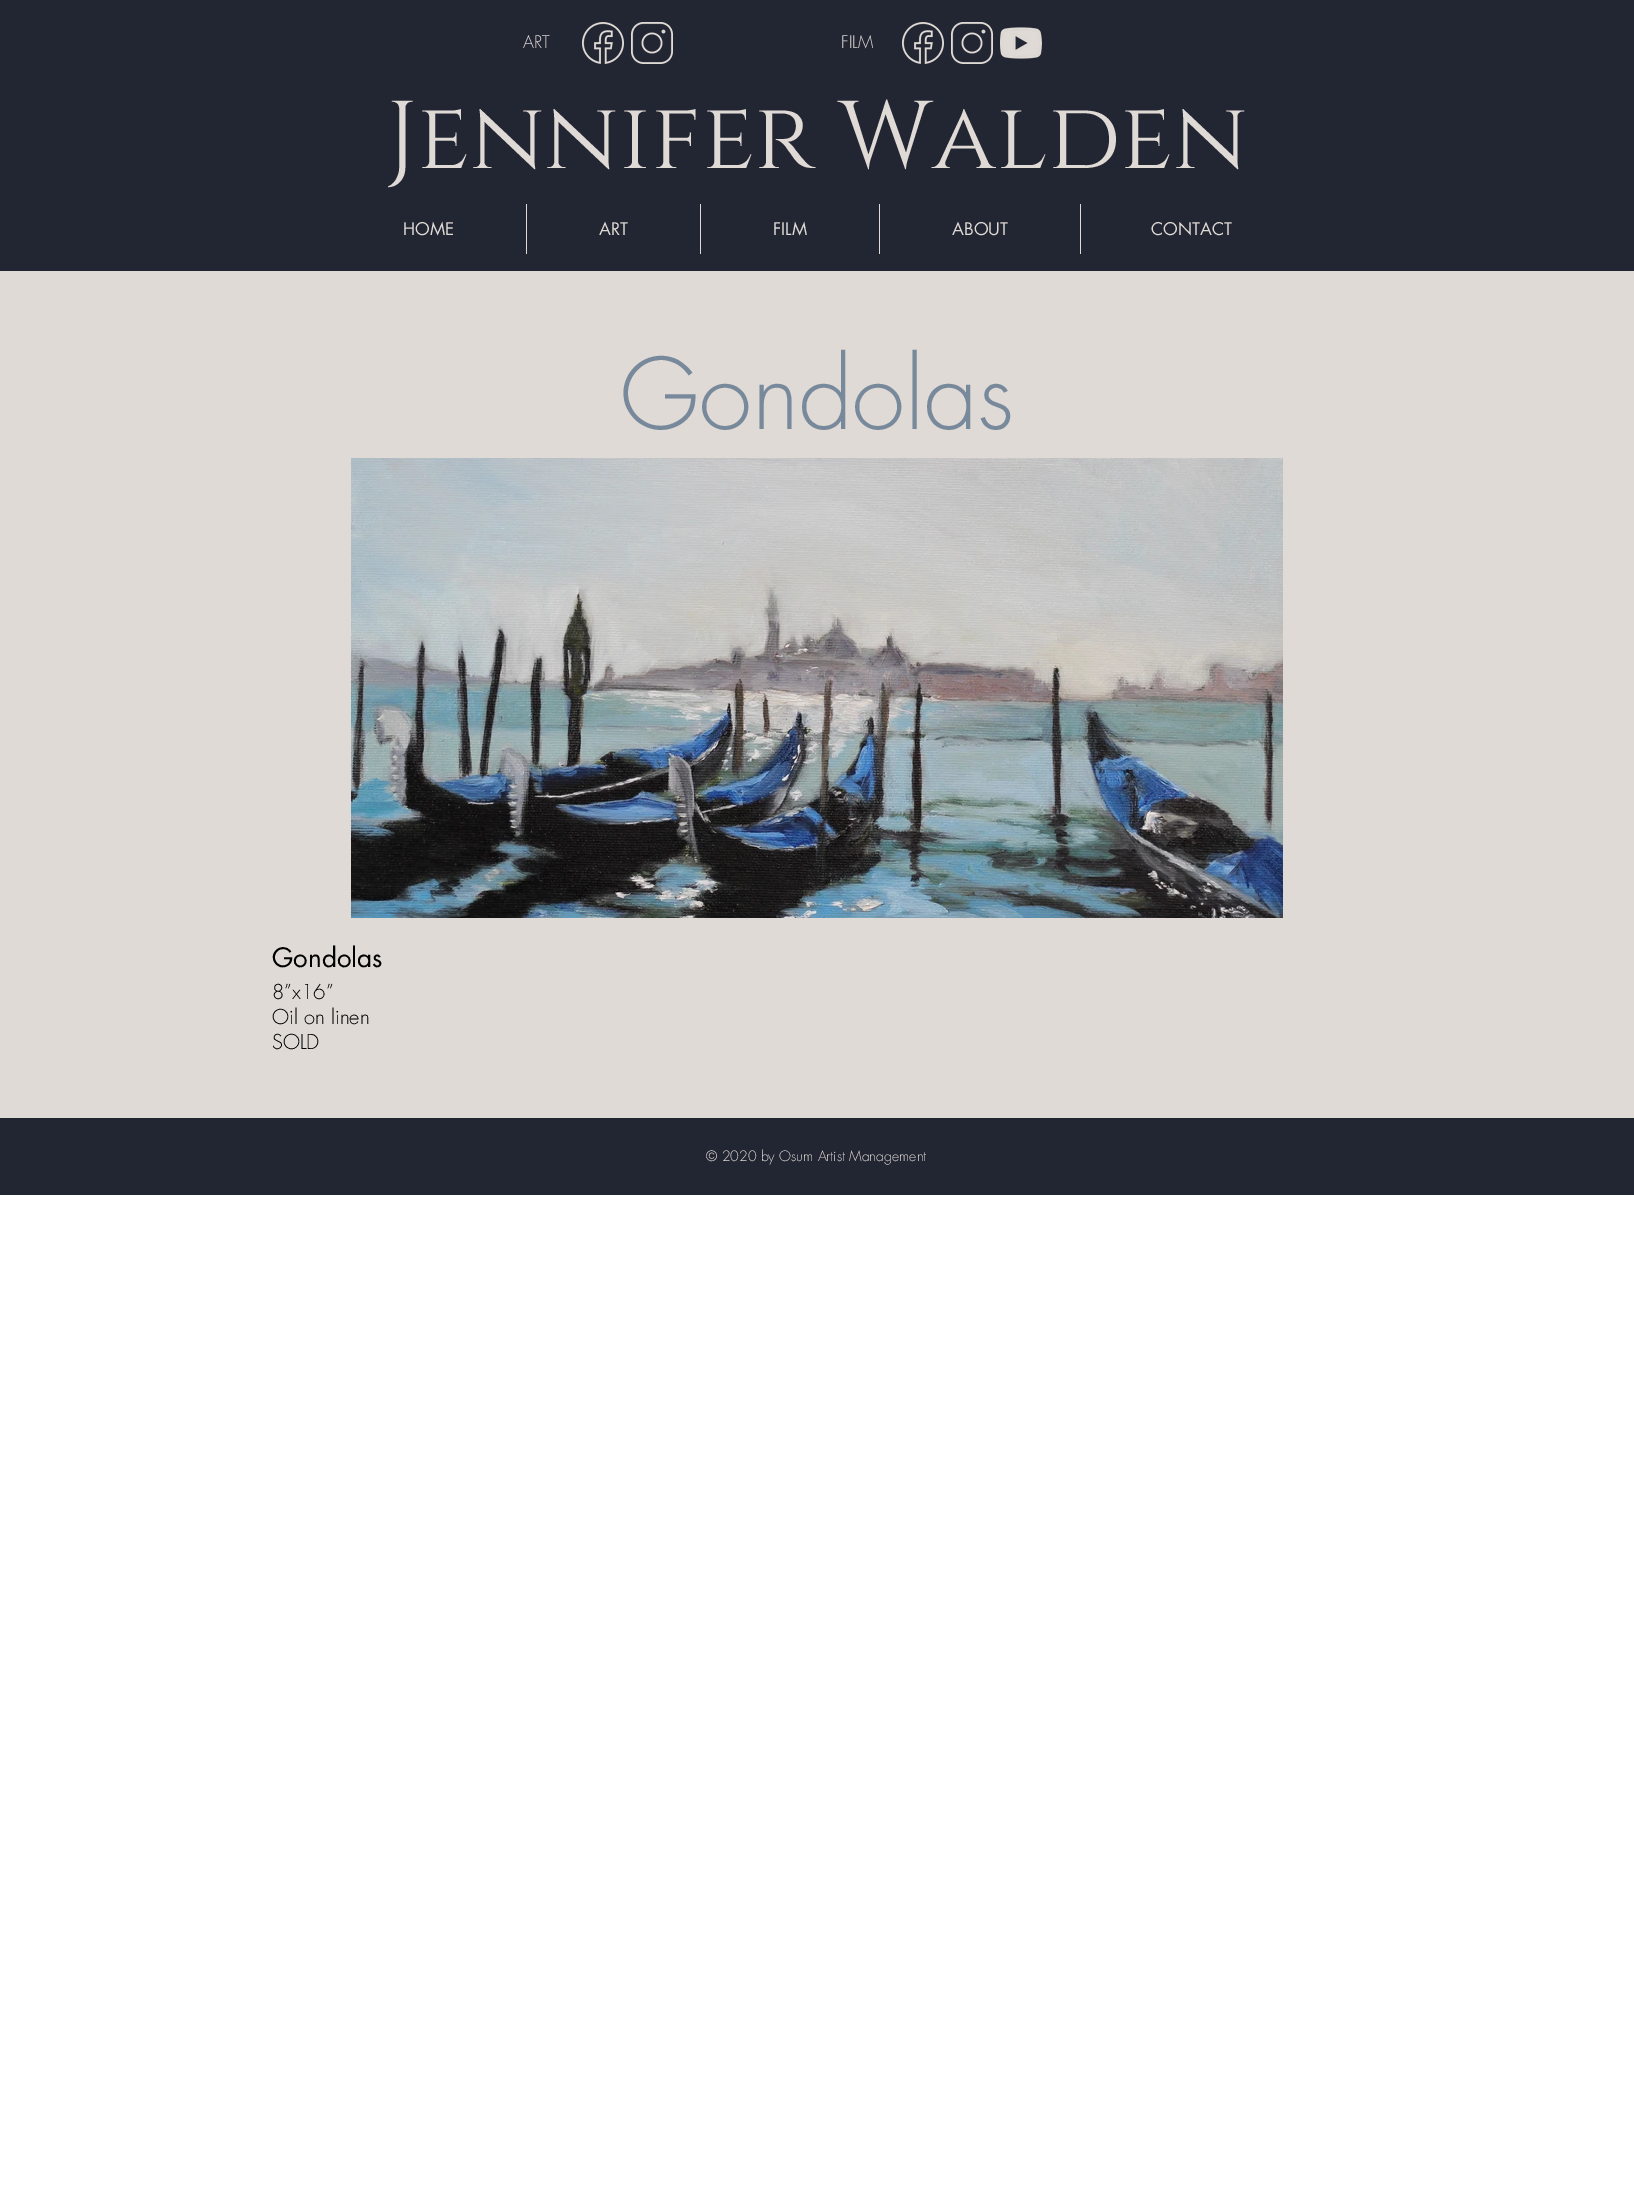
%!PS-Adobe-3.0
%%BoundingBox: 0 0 1634 2209
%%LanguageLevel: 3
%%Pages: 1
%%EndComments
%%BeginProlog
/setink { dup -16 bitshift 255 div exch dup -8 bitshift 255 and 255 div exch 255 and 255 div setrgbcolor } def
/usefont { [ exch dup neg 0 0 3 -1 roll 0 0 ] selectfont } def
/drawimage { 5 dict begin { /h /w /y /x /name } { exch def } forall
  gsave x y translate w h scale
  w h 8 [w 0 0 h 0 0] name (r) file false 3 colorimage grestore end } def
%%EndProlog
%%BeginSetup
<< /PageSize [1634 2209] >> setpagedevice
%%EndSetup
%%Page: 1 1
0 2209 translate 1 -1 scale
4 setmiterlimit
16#FFFFFF setink
0 0 1634 2209 rectfill
16#222532 setink
0 0 1634 271 rectfill
/futura-Light 17 usefont
16#DFDAD5 setink
523 48 moveto (ART) show
(img1.raw) 582 22 42 42 drawimage
(img2.raw) 631 22 42 42 drawimage
841 48 moveto (FILM) show
(img1.raw) 902 22 42 42 drawimage
(img2.raw) 951 22 42 42 drawimage
(img3.raw) 1000 27 42 32 drawimage
/Cinzel-Regular 96 usefont
386 168 moveto (Jennifer Walden) show
/futura-Regular 17 usefont
403 235 moveto (HOME) show
526 204 1 50 rectfill
599 235 moveto (ART) show
700 204 1 50 rectfill
773 235 moveto (FILM) show
879 204 1 50 rectfill
952 235 moveto (ABOUT) show
1080 204 1 50 rectfill
1151 235 moveto (CONTACT) show
0 271 1634 847 rectfill
/futura-Light 96 usefont
16#78899C setink
620 429 moveto (Gondolas) show
(img4.raw) 351 458 932 460 drawimage
/futura-Regular 26 usefont
16#000000 setink
272 967 moveto (Gondolas) show
/futura-Light 20 usefont
[
    [(8”x16”) 272 999]
    [(Oil on linen) 272 1024]
    [(SOLD) 272 1049]
] { aload pop moveto show } forall
16#222532 setink
0 1118 1634 77 rectfill
/futura-Light 14 usefont
16#DFDAD5 setink
706 1161 moveto (© 2020 by Osum Artist Management) show
showpage
%%EOF
